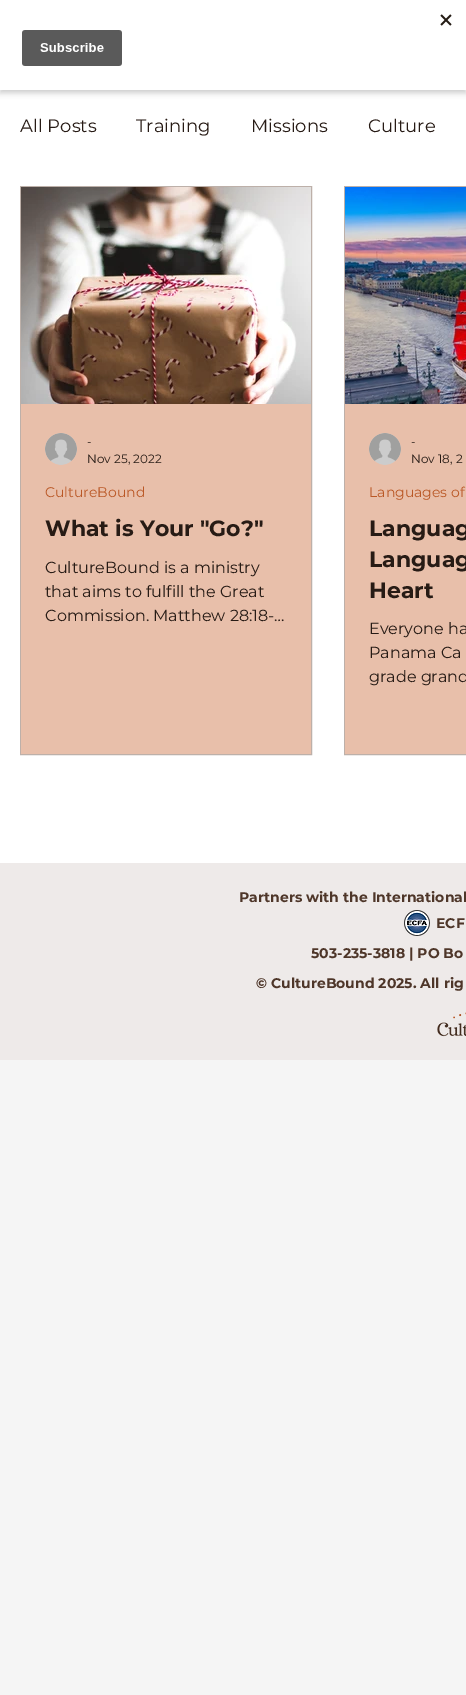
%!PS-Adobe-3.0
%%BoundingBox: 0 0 466 1695
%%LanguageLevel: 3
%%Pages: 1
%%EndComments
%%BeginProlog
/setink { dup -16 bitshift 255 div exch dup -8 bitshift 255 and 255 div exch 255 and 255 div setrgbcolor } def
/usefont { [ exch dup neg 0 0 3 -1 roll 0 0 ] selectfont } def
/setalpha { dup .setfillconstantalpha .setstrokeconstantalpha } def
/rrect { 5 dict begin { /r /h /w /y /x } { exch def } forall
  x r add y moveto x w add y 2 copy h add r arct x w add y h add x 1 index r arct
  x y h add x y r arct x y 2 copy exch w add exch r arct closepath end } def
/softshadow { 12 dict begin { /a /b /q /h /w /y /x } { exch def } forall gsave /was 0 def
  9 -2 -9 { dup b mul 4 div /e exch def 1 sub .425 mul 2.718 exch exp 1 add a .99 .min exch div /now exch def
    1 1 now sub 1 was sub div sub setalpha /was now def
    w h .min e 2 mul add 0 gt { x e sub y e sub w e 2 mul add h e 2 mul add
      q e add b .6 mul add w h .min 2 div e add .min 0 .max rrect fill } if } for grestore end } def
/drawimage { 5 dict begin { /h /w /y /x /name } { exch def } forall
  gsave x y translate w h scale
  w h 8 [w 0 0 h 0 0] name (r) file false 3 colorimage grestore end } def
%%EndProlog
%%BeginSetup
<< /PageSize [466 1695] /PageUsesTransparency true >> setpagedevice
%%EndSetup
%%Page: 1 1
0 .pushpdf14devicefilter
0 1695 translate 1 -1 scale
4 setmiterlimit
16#F5F5F5 setink
0 0 466 1695 rectfill
16#FFFFFF setink
0 90 466 773 rectfill
16#000000 setink
0 3 466 90 0 3 0.2 softshadow
16#FFFFFF setink
0 0 466 90 rectfill
(img1.raw) 22 14 430 52 drawimage
/Montserrat-Regular 18 usefont
16#271B15 setink
[
    [(All Posts) 20 132]
    [(Training) 136 132]
    [(Missions) 251 132]
    [(Culture) 368 132]
] { aload pop moveto show } forall
16#BDB0A9 setink
20.5 186.5 291 568 rectstroke
(img2.raw) 21 187 290 217 drawimage
16#E8BFAA setink
21 404 290 350 rectfill
(img3.raw) 45 433 32 32 drawimage
/Montserrat-Regular 12 usefont
16#271B15 setink
87 446 moveto (-) show
87 463 moveto (Nov 25, 2022) show
/Montserrat-Regular 14 usefont
16#BA5826 setink
45 497 moveto (CultureBound) show
/Montserrat-Bold 22 usefont
16#271B15 setink
45 536 moveto (What is Your "Go?") show
/Montserrat-Regular 16 usefont
[
    [(CultureBound is a ministry) 45 573]
    [(that aims to fulfill the Great) 45 597]
    [(Commission. Matthew 28:18-…) 45 621]
] { aload pop moveto show } forall
16#BDB0A9 setink
344.5 186.5 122 568 rectstroke
(img4.raw) 345 187 121 217 drawimage
16#E8BFAA setink
345 404 121 350 rectfill
(img3.raw) 369 433 32 32 drawimage
/Montserrat-Regular 12 usefont
16#271B15 setink
411 446 moveto (-) show
411 463 moveto (Nov 18, 2) show
/Montserrat-Regular 14 usefont
16#BA5826 setink
369 497 moveto (Languages of) show
/Montserrat-Bold 22 usefont
16#271B15 setink
[
    [(Languag) 369 536]
    [(Languag) 369 567]
    [(Heart) 369 598]
] { aload pop moveto show } forall
/Montserrat-Regular 16 usefont
[
    [(Everyone ha) 369 634]
    [(Panama Ca) 369 658]
    [(grade grand) 369 682]
] { aload pop moveto show } forall
16#EEEAE9 setink
0 863 466 197 rectfill
/Montserrat-Bold 14 usefont
16#4E3629 setink
239 902 moveto (Partners with the International) show
(img5.raw) 404 910 26 26 drawimage
[
    [(ECF) 436 928]
    [(503-235-3818 | PO Bo) 311 958]
    [(© CultureBound 2025. All rig) 256 988]
] { aload pop moveto show } forall
(img6.raw) 437 1012 29 25 drawimage
.poppdf14devicefilter showpage
%%EOF
